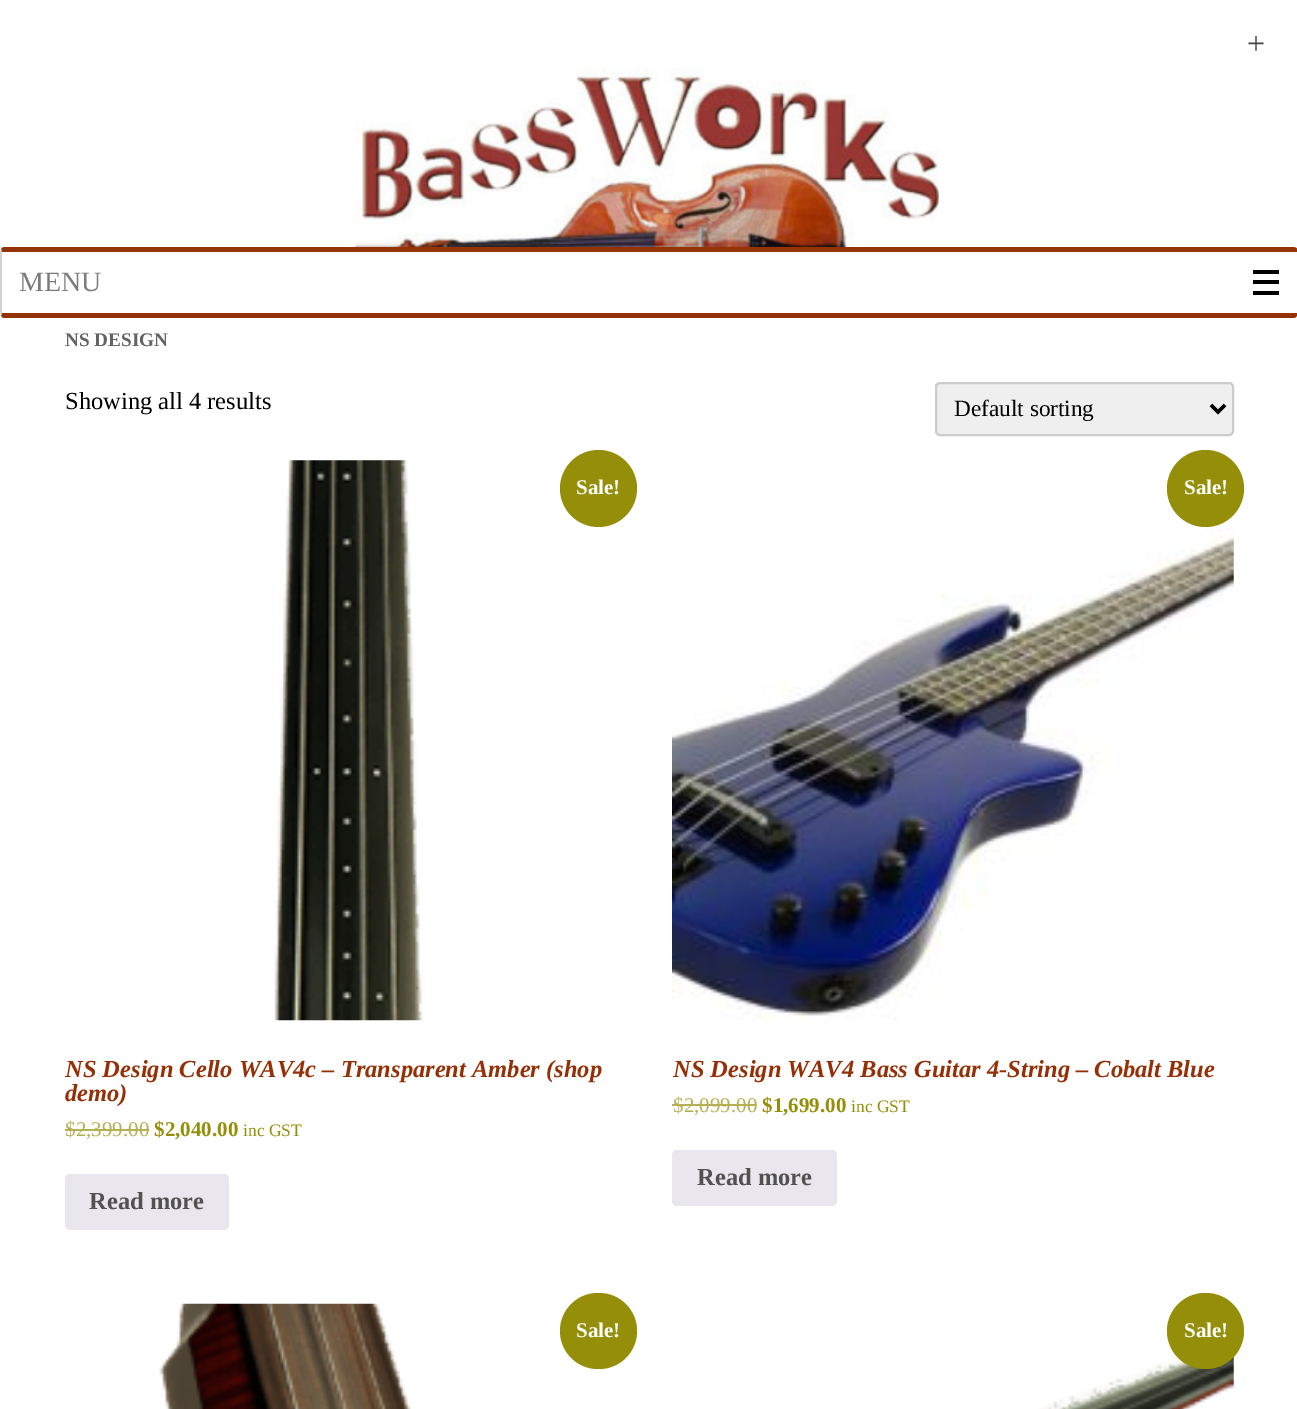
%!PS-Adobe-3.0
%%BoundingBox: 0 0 1297 1409
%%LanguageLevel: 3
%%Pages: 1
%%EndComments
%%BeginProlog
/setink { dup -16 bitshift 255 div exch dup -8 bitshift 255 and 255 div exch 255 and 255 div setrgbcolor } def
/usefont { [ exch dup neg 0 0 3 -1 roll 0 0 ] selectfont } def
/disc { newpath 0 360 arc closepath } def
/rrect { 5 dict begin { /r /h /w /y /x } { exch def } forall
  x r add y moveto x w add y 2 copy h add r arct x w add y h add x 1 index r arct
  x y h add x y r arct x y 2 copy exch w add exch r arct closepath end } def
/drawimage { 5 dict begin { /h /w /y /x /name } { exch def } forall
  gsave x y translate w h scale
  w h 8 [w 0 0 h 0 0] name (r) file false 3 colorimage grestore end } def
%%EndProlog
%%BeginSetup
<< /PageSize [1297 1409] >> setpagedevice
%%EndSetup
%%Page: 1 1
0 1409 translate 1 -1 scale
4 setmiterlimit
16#FFFFFF setink
0 0 1297 1409 rectfill
(img1.raw) 355 67 590 180 drawimage
16#943306 setink
5 247 moveto 3 247 2 248 1 249 curveto 2 253 lineto 2 252 lineto 1297 252 lineto 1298 250 lineto 1297 248 1295 247 1293 247 curveto closepath fill
1297 315 moveto 1297 317 1295 318 1293 318 curveto 5 318 lineto 3 318 2 317 1 316 curveto 2 312 lineto 2 313 lineto 1297 313 lineto closepath fill
16#D2D2D2 setink
0 252 moveto 0 313 lineto 1 316 lineto 2 312 lineto 2 253 lineto 1 249 lineto closepath fill
/LiberationSerif-Regular 28 usefont
16#7C7C7C setink
19 291 moveto (MENU) show
[
    [1253 291 26 4 16#000000]
    [1253 270 26 4 16#000000]
    [1253 280 26 4 16#000000]
] { aload pop setink rectfill } forall
/LiberationSerif-Regular 32 usefont
16#444444 setink
1247 54 moveto (+) show
/LiberationSerif-Bold 19.25 usefont
16#636363 setink
65 346 moveto (NS DESIGN) show
/LiberationSerif-Regular 24.5 usefont
16#000000 setink
65 409 moveto (Showing all 4 results) show
16#EFEFEF setink
936 383 297 52 4 rrect gsave fill grestore
16#CCCCCC setink
2 setlinewidth
stroke
16#000000 setink
3.5 setlinewidth
1211 405 moveto 1218 412 lineto 1225 405 lineto stroke
/LiberationSerif-Regular 23.25 usefont
954 416 moveto (Default sorting) show
(img2.raw) 274 460 149 561 drawimage
16#958E09 setink
598.5 488.5 38.5 disc fill
/LiberationSerif-Bold 21 usefont
16#FFFFFF setink
576 494 moveto (Sale!) show
/LiberationSerif-BoldItalic 24.5 usefont
16#952F06 setink
65 1077 moveto (NS Design Cello WAV4c – Transparent Amber \(shop) show
65 1101 moveto (demo\)) show
/LiberationSerif-Regular 21 usefont
16#B5B053 setink
65 1136 moveto ($2,399.00) show
65 1129 84 2 rectfill
/LiberationSerif-Bold 21 usefont
16#958E09 setink
154 1136 moveto ($2,040.00) show
/LiberationSerif-Regular 17.5 usefont
243 1136 moveto (inc GST) show
16#E9E6ED setink
65 1174 164 56 5 rrect fill
/LiberationSerif-Bold 24.5 usefont
16#515151 setink
89 1209 moveto (Read more) show
16#958E09 setink
1205.5 488.5 38.5 disc fill
/LiberationSerif-Bold 21 usefont
16#FFFFFF setink
1184 494 moveto (Sale!) show
(img3.raw) 672 528 562 492 drawimage
/LiberationSerif-BoldItalic 24.5 usefont
16#952F06 setink
673 1077 moveto (NS Design WAV4 Bass Guitar 4-String – Cobalt Blue) show
/LiberationSerif-Regular 21 usefont
16#B5B053 setink
673 1112 moveto ($2,099.00) show
672 1104 84 2 rectfill
/LiberationSerif-Bold 21 usefont
16#958E09 setink
762 1112 moveto ($1,699.00) show
/LiberationSerif-Regular 17.5 usefont
851 1112 moveto (inc GST) show
16#E9E6ED setink
672 1150 165 56 5 rrect fill
/LiberationSerif-Bold 24.5 usefont
16#515151 setink
697 1185 moveto (Read more) show
(img4.raw) 159 1303 252 106 drawimage
16#958E09 setink
560 1293 77 76 38 rrect fill
/LiberationSerif-Bold 21 usefont
16#FFFFFF setink
576 1337 moveto (Sale!) show
(img5.raw) 1039 1356 195 53 drawimage
16#958E09 setink
1167 1293 77 76 38 rrect fill
16#FFFFFF setink
1184 1337 moveto (Sale!) show
showpage
%%EOF
